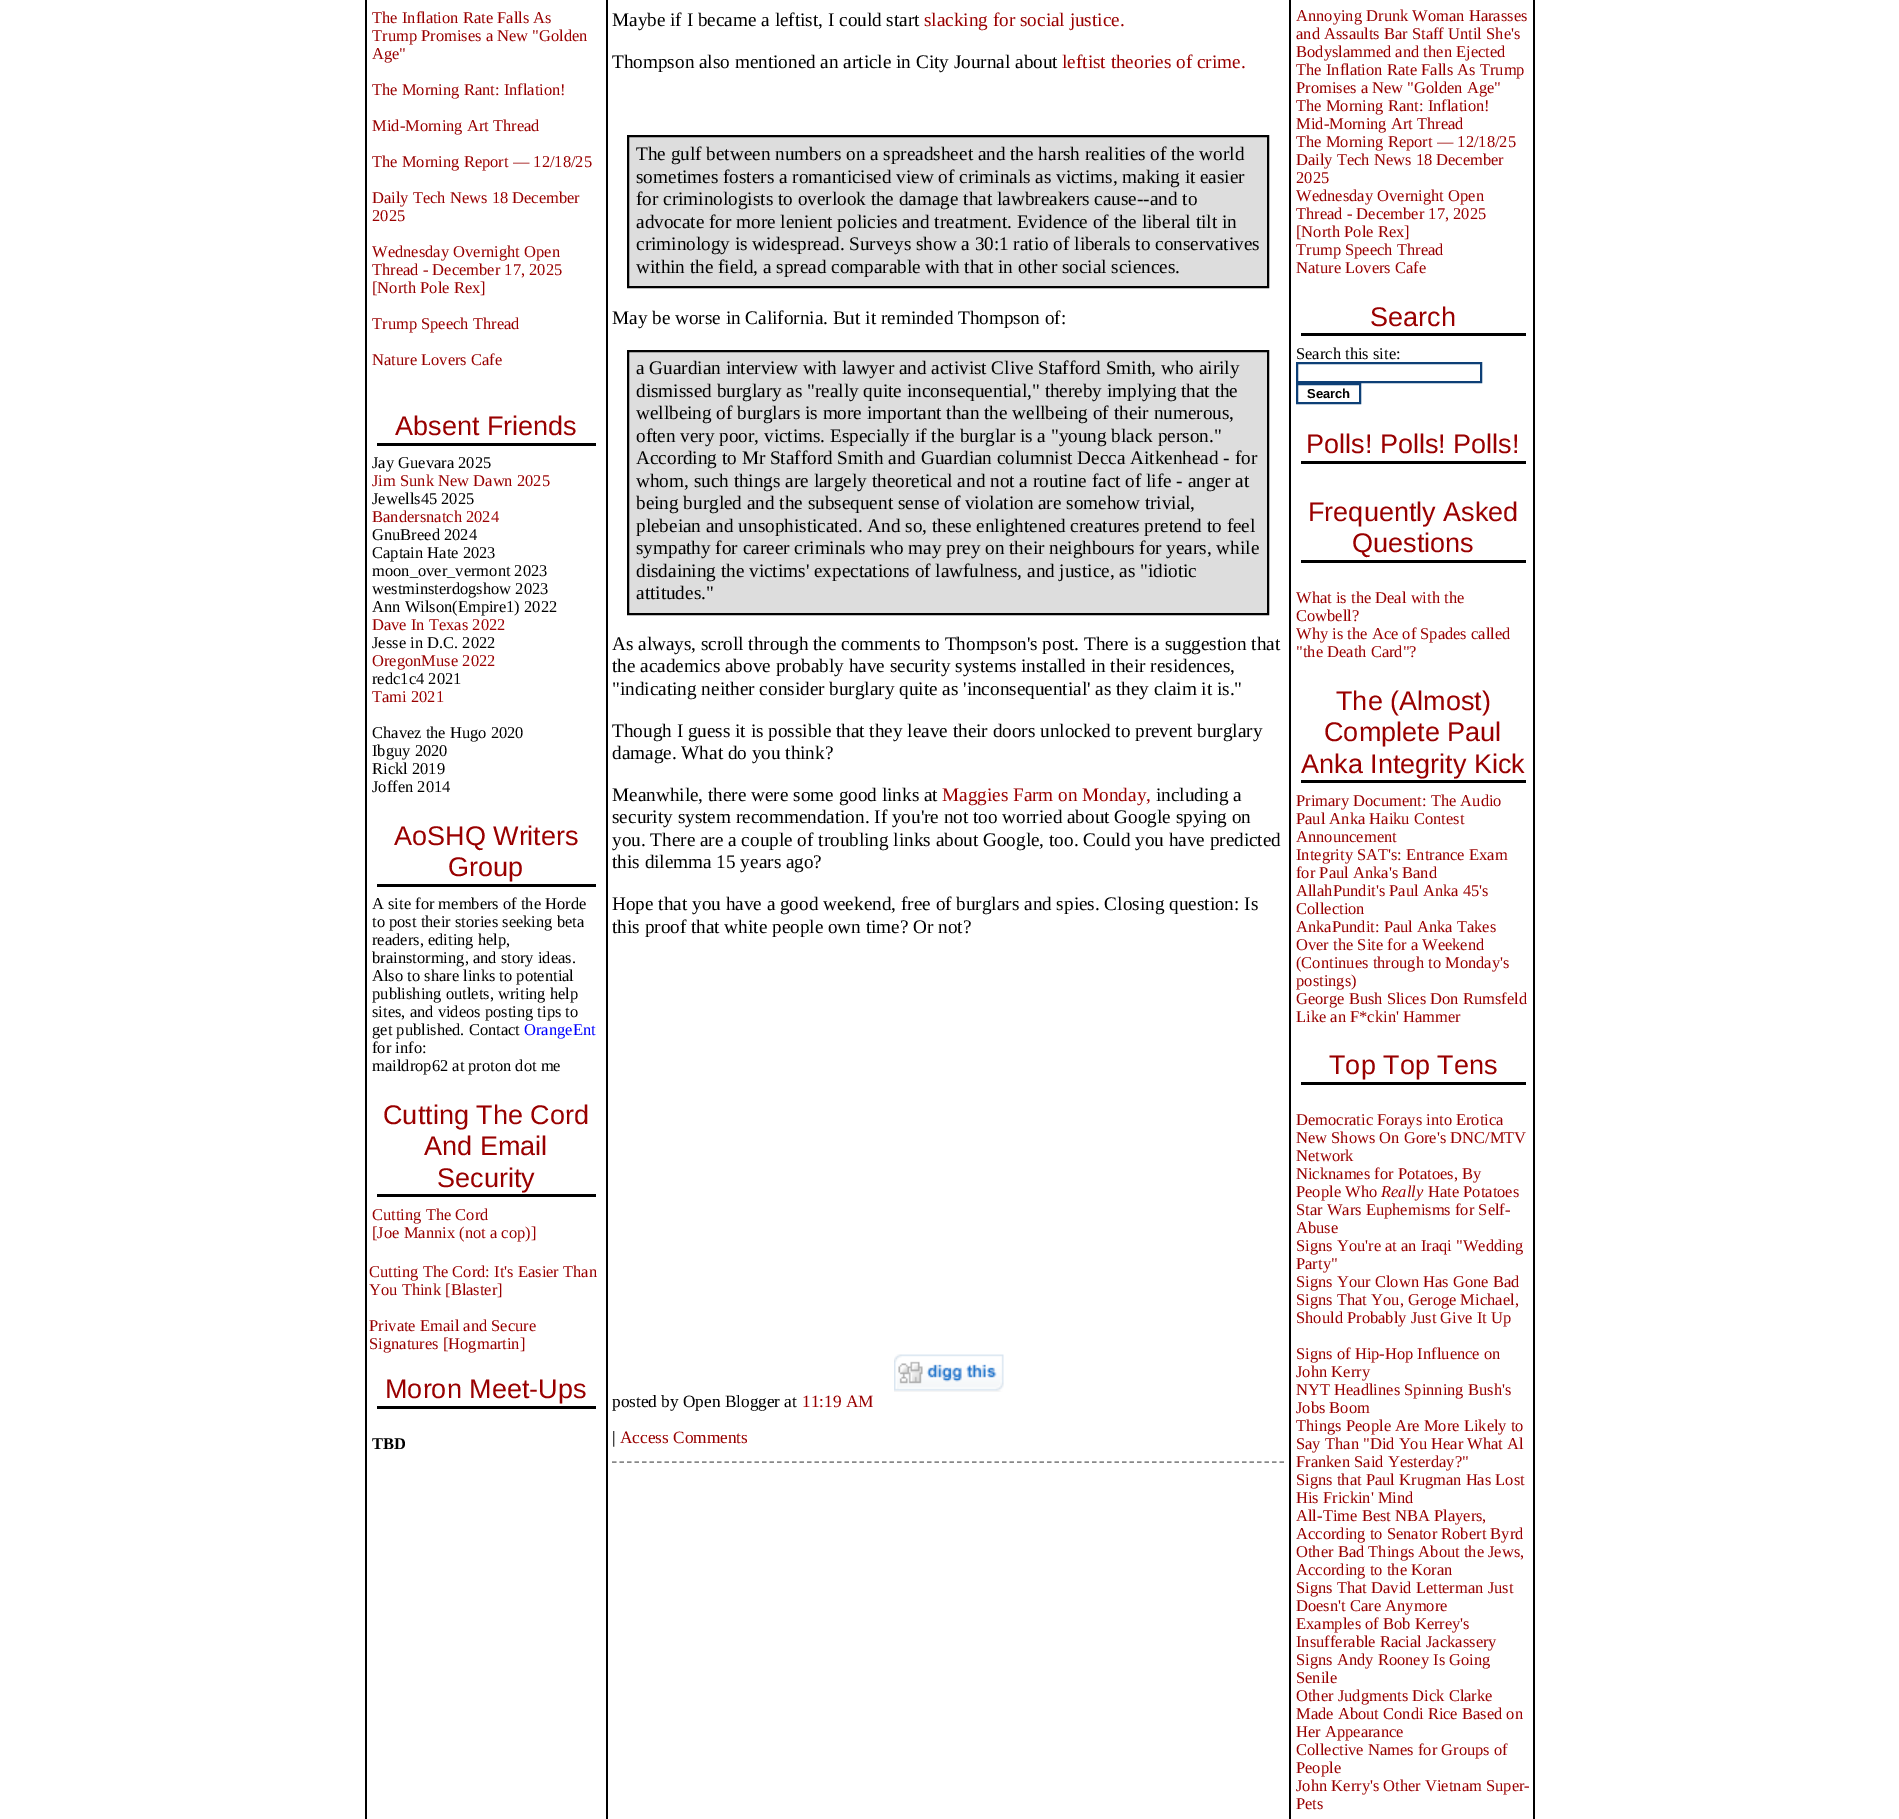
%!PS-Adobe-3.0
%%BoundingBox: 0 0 1899 1819
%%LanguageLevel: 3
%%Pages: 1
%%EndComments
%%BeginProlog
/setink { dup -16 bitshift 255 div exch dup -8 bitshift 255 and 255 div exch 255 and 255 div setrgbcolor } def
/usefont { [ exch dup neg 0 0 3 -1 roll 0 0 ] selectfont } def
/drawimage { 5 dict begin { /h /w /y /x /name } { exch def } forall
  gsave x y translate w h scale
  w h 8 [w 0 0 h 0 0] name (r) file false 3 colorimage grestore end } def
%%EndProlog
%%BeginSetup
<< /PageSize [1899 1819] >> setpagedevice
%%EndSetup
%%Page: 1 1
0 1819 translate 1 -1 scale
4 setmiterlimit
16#FFFFFF setink
0 0 1899 1819 rectfill
16#000000 setink
1533 0 2 1819 rectfill
365 0 2 1819 rectfill
/LiberationSerif-Regular 16.5 usefont
16#990000 setink
[
    [(The Inflation Rate Falls As) 372 23]
    [(Trump Promises a New "Golden) 372 41]
    [(Age") 372 59]
    [(The Morning Rant: Inflation!) 372 95]
    [(Mid-Morning Art Thread) 372 131]
    [(The Morning Report — 12/18/25) 372 167]
    [(Daily Tech News 18 December) 372 203]
    [(2025) 372 221]
    [(Wednesday Overnight Open) 372 257]
    [(Thread - December 17, 2025) 372 275]
    [([North Pole Rex]) 372 293]
    [(Trump Speech Thread) 372 329]
    [(Nature Lovers Cafe) 372 365]
] { aload pop moveto show } forall
16#000000 setink
377 443 219 3 rectfill
/LiberationSans-Regular 27 usefont
16#990000 setink
395 435 moveto (Absent Friends) show
/LiberationSerif-Regular 16.5 usefont
16#000000 setink
372 468 moveto (Jay Guevara 2025) show
16#990000 setink
372 486 moveto (Jim Sunk New Dawn 2025) show
16#000000 setink
372 504 moveto (Jewells45 2025) show
16#990000 setink
372 522 moveto (Bandersnatch 2024) show
16#000000 setink
[
    [(GnuBreed 2024) 372 540]
    [(Captain Hate 2023) 372 558]
    [(moon_over_vermont 2023) 372 576]
    [(westminsterdogshow 2023) 372 594]
    [(Ann Wilson\(Empire1\) 2022) 372 612]
] { aload pop moveto show } forall
16#990000 setink
372 630 moveto (Dave In Texas 2022) show
16#000000 setink
372 648 moveto (Jesse in D.C. 2022) show
16#990000 setink
372 666 moveto (OregonMuse 2022) show
16#000000 setink
372 684 moveto (redc1c4 2021) show
16#990000 setink
372 702 moveto (Tami 2021) show
16#000000 setink
[
    [(Chavez the Hugo 2020) 372 738]
    [(Ibguy 2020) 372 756]
    [(Rickl 2019) 372 774]
    [(Joffen 2014) 372 792]
] { aload pop moveto show } forall
377 884 219 3 rectfill
/LiberationSans-Regular 27 usefont
16#990000 setink
394 845 moveto (AoSHQ Writers) show
448 876 moveto (Group) show
/LiberationSerif-Regular 16.5 usefont
16#000000 setink
[
    [(A site for members of the Horde) 372 909]
    [(to post their stories seeking beta) 372 927]
    [(readers, editing help,) 372 945]
    [(brainstorming, and story ideas.) 372 963]
    [(Also to share links to potential) 372 981]
    [(publishing outlets, writing help) 372 999]
    [(sites, and videos posting tips to) 372 1017]
    [(get published. Contact) 372 1035]
] { aload pop moveto show } forall
16#0000FF setink
524 1035 moveto (OrangeEnt) show
16#000000 setink
372 1053 moveto (for info:) show
372 1071 moveto (maildrop62 at proton dot me) show
377 1194 219 3 rectfill
/LiberationSans-Regular 27 usefont
16#990000 setink
[
    [(Cutting The Cord) 383 1124]
    [(And Email) 424 1155]
    [(Security) 437 1187]
] { aload pop moveto show } forall
/LiberationSerif-Regular 16.5 usefont
[
    [(Cutting The Cord) 372 1220]
    [([Joe Mannix \(not a cop\)]) 372 1238]
    [(Cutting The Cord: It's Easier Than) 369 1277]
    [(You Think [Blaster]) 369 1295]
    [(Private Email and Secure) 369 1331]
    [(Signatures [Hogmartin]) 369 1349]
] { aload pop moveto show } forall
16#000000 setink
377 1406 219 3 rectfill
/LiberationSans-Regular 27 usefont
16#990000 setink
385 1398 moveto (Moron Meet-Ups) show
/LiberationSerif-Bold 16.5 usefont
16#000000 setink
372 1449 moveto (TBD) show
606 0 2 1819 rectfill
/LiberationSerif-Regular 19.2 usefont
612 26 moveto (Maybe if I became a leftist, I could start) show
16#990000 setink
924 26 moveto (slacking for social justice.) show
16#000000 setink
612 68 moveto (Thompson also mentioned an article in City Journal about) show
16#990000 setink
1062 68 moveto (leftist theories of crime.) show
16#DDDDDD setink
628 136 moveto 1268 136 lineto 1268 287 lineto 628 287 lineto closepath gsave fill grestore
16#000000 setink
2 setlinewidth
stroke
[
    [(The gulf between numbers on a spreadsheet and the harsh realities of the world) 636 160]
    [(sometimes fosters a romanticised view of criminals as victims, making it easier) 636 183]
    [(for criminologists to overlook the damage that lawbreakers cause--and to) 636 205]
    [(advocate for more lenient policies and treatment. Evidence of the liberal tilt in) 636 228]
    [(criminology is widespread. Surveys show a 30:1 ratio of liberals to conservatives) 636 250]
    [(within the field, a spread comparable with that in other social sciences.) 636 273]
    [(May be worse in California. But it reminded Thompson of:) 612 324]
] { aload pop moveto show } forall
16#DDDDDD setink
628 351 moveto 1268 351 lineto 1268 614 lineto 628 614 lineto closepath gsave fill grestore
16#000000 setink
stroke
[
    [(a Guardian interview with lawyer and activist Clive Stafford Smith, who airily) 636 374]
    [(dismissed burglary as "really quite inconsequential," thereby implying that the) 636 397]
    [(wellbeing of burglars is more important than the wellbeing of their numerous,) 636 419]
    [(often very poor, victims. Especially if the burglar is a "young black person.") 636 442]
    [(According to Mr Stafford Smith and Guardian columnist Decca Aitkenhead - for) 636 464]
    [(whom, such things are largely theoretical and not a routine fact of life - anger at) 636 487]
    [(being burgled and the subsequent sense of violation are somehow trivial,) 636 509]
    [(plebeian and unsophisticated. And so, these enlightened creatures pretend to feel) 636 532]
    [(sympathy for career criminals who may prey on their neighbours for years, while) 636 554]
    [(disdaining the victims' expectations of lawfulness, and justice, as "idiotic) 636 577]
    [(attitudes.") 636 599]
    [(As always, scroll through the comments to Thompson's post. There is a suggestion that) 612 650]
    [(the academics above probably have security systems installed in their residences,) 612 672]
    [("indicating neither consider burglary quite as 'inconsequential' as they claim it is.") 612 695]
    [(Though I guess it is possible that they leave their doors unlocked to prevent burglary) 612 737]
    [(damage. What do you think?) 612 759]
    [(Meanwhile, there were some good links at) 612 801]
] { aload pop moveto show } forall
16#990000 setink
942 801 moveto (Maggies Farm on Monday,) show
16#000000 setink
[
    [(including a) 1156 801]
    [(security system recommendation. If you're not too worried about Google spying on) 612 823]
    [(you. There are a couple of troubling links about Google, too. Could you have predicted) 612 846]
    [(this dilemma 15 years ago?) 612 868]
    [(Hope that you have a good weekend, free of burglars and spies. Closing question: Is) 612 910]
    [(this proof that white people own time? Or not?) 612 933]
] { aload pop moveto show } forall
16#888888 setink
1.5 setlinewidth
[4.5 3] 0 setdash
612 1462 moveto 1284 1462 lineto stroke
(img1.raw) 894 1354 110 38 drawimage
/LiberationSerif-Regular 17.25 usefont
16#000000 setink
612 1407 moveto (posted by Open Blogger at) show
16#990000 setink
802 1407 moveto (11:19 AM) show
16#000000 setink
612 1443 moveto (|) show
16#990000 setink
620 1443 moveto (Access Comments) show
16#000000 setink
1289 0 2 1819 rectfill
/LiberationSerif-Regular 16.5 usefont
16#990000 setink
[
    [(Annoying Drunk Woman Harasses) 1296 21]
    [(and Assaults Bar Staff Until She's) 1296 39]
    [(Bodyslammed and then Ejected) 1296 57]
    [(The Inflation Rate Falls As Trump) 1296 75]
    [(Promises a New "Golden Age") 1296 93]
    [(The Morning Rant: Inflation!) 1296 111]
    [(Mid-Morning Art Thread) 1296 129]
    [(The Morning Report — 12/18/25) 1296 147]
    [(Daily Tech News 18 December) 1296 165]
    [(2025) 1296 183]
    [(Wednesday Overnight Open) 1296 201]
    [(Thread - December 17, 2025) 1296 219]
    [([North Pole Rex]) 1296 237]
    [(Trump Speech Thread) 1296 255]
    [(Nature Lovers Cafe) 1296 273]
] { aload pop moveto show } forall
16#000000 setink
1301 333 225 3 rectfill
/LiberationSans-Regular 27 usefont
16#990000 setink
1370 326 moveto (Search) show
/LiberationSerif-Regular 16.5 usefont
16#000000 setink
1296 359 moveto (Search this site:) show
16#0D3F76 setink
2 setlinewidth
[] 0 setdash
1297 363 184 19 rectstroke
1297 384 63 19 rectstroke
/LiberationSans-Bold 13 usefont
16#000000 setink
1307 398 moveto (Search) show
1301 461 225 3 rectfill
/LiberationSans-Regular 27 usefont
16#990000 setink
1306 453 moveto (Polls! Polls! Polls!) show
16#000000 setink
1301 560 225 3 rectfill
16#990000 setink
1308 521 moveto (Frequently Asked) show
1352 552 moveto (Questions) show
/LiberationSerif-Regular 16.5 usefont
[
    [(What is the Deal with the) 1296 603]
    [(Cowbell?) 1296 621]
    [(Why is the Ace of Spades called) 1296 639]
    [("the Death Card"?) 1296 657]
] { aload pop moveto show } forall
16#000000 setink
1301 780 225 3 rectfill
/LiberationSans-Regular 27 usefont
16#990000 setink
[
    [(The \(Almost\)) 1336 710]
    [(Complete Paul) 1324 741]
    [(Anka Integrity Kick) 1301 773]
] { aload pop moveto show } forall
/LiberationSerif-Regular 16.5 usefont
[
    [(Primary Document: The Audio) 1296 806]
    [(Paul Anka Haiku Contest) 1296 824]
    [(Announcement) 1296 842]
    [(Integrity SAT's: Entrance Exam) 1296 860]
    [(for Paul Anka's Band) 1296 878]
    [(AllahPundit's Paul Anka 45's) 1296 896]
    [(Collection) 1296 914]
    [(AnkaPundit: Paul Anka Takes) 1296 932]
    [(Over the Site for a Weekend) 1296 950]
    [(\(Continues through to Monday's) 1296 968]
    [(postings\)) 1296 986]
    [(George Bush Slices Don Rumsfeld) 1296 1004]
    [(Like an F*ckin' Hammer) 1296 1022]
] { aload pop moveto show } forall
16#000000 setink
1301 1082 225 3 rectfill
/LiberationSans-Regular 27 usefont
16#990000 setink
1329 1074 moveto (Top Top Tens) show
/LiberationSerif-Regular 16.5 usefont
[
    [(Democratic Forays into Erotica) 1296 1125]
    [(New Shows On Gore's DNC/MTV) 1296 1143]
    [(Network) 1296 1161]
    [(Nicknames for Potatoes, By) 1296 1179]
    [(People Who) 1296 1197]
] { aload pop moveto show } forall
/LiberationSerif-Italic 16.5 usefont
1381 1197 moveto (Really) show
/LiberationSerif-Regular 16.5 usefont
[
    [(Hate Potatoes) 1428 1197]
    [(Star Wars Euphemisms for Self-) 1296 1215]
    [(Abuse) 1296 1233]
    [(Signs You're at an Iraqi "Wedding) 1296 1251]
    [(Party") 1296 1269]
    [(Signs Your Clown Has Gone Bad) 1296 1287]
    [(Signs That You, Geroge Michael,) 1296 1305]
    [(Should Probably Just Give It Up) 1296 1323]
    [(Signs of Hip-Hop Influence on) 1296 1359]
    [(John Kerry) 1296 1377]
    [(NYT Headlines Spinning Bush's) 1296 1395]
    [(Jobs Boom) 1296 1413]
    [(Things People Are More Likely to) 1296 1431]
    [(Say Than "Did You Hear What Al) 1296 1449]
    [(Franken Said Yesterday?") 1296 1467]
    [(Signs that Paul Krugman Has Lost) 1296 1485]
    [(His Frickin' Mind) 1296 1503]
    [(All-Time Best NBA Players,) 1296 1521]
    [(According to Senator Robert Byrd) 1296 1539]
    [(Other Bad Things About the Jews,) 1296 1557]
    [(According to the Koran) 1296 1575]
    [(Signs That David Letterman Just) 1296 1593]
    [(Doesn't Care Anymore) 1296 1611]
    [(Examples of Bob Kerrey's) 1296 1629]
    [(Insufferable Racial Jackassery) 1296 1647]
    [(Signs Andy Rooney Is Going) 1296 1665]
    [(Senile) 1296 1683]
    [(Other Judgments Dick Clarke) 1296 1701]
    [(Made About Condi Rice Based on) 1296 1719]
    [(Her Appearance) 1296 1737]
    [(Collective Names for Groups of) 1296 1755]
    [(People) 1296 1773]
    [(John Kerry's Other Vietnam Super-) 1296 1791]
    [(Pets) 1296 1809]
] { aload pop moveto show } forall
showpage
%%EOF
